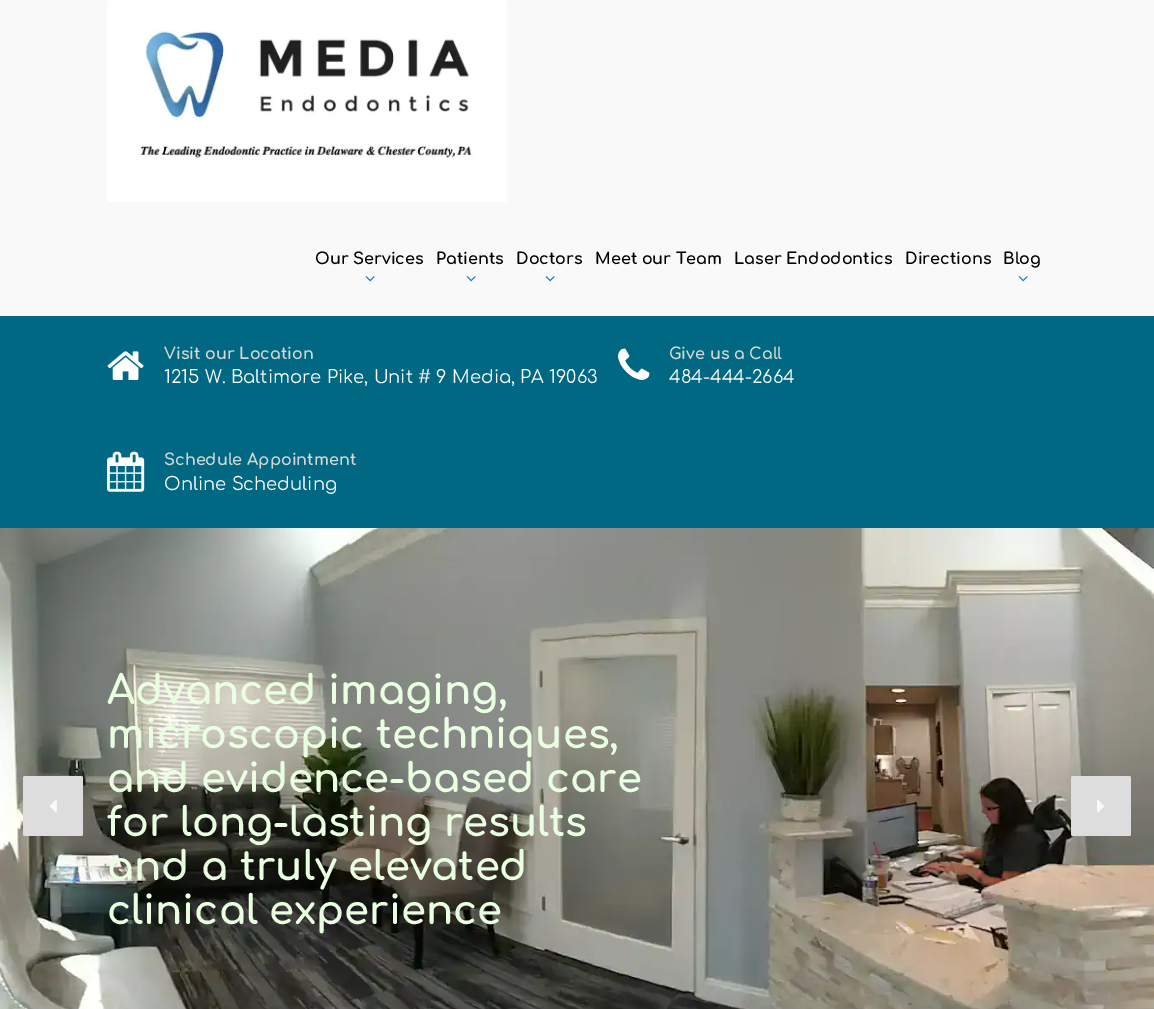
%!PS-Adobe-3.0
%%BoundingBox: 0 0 1154 1009
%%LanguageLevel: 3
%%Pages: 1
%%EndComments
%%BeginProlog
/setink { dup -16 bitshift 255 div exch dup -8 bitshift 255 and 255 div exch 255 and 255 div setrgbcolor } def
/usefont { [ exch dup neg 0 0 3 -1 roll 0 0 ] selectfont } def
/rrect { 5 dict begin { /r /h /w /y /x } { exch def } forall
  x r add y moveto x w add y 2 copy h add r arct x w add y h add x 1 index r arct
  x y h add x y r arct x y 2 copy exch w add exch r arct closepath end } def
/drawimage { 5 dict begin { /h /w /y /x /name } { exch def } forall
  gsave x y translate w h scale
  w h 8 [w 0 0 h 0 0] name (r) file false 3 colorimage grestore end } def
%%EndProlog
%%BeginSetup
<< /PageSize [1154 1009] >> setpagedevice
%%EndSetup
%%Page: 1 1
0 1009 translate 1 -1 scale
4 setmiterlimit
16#F9F9F9 setink
0 0 1154 1009 rectfill
(img1.raw) 107 0 400 202 drawimage
/Comfortaa-Bold 16 usefont
16#000000 setink
315 264 moveto (Our Services) show
(img2.raw) 365 276 10 6 drawimage
436 264 moveto (Patients) show
(img2.raw) 466 276 10 6 drawimage
516 264 moveto (Doctors) show
(img2.raw) 545 276 10 6 drawimage
[
    [(Meet our Team) 595 264]
    [(Laser Endodontics) 734 264]
    [(Directions) 905 264]
    [(Blog) 1003 264]
] { aload pop moveto show } forall
(img2.raw) 1018 276 10 6 drawimage
16#006882 setink
0 316 1154 212 rectfill
(img3.raw) 107 351 37 29 drawimage
16#D6D6D6 setink
164 359 moveto (Visit our Location) show
/Comfortaa-Regular 18 usefont
16#FFFFFF setink
164 383 moveto (1215 W. Baltimore Pike, Unit # 9 Media, PA 19063) show
(img4.raw) 618 348 32 32 drawimage
/Comfortaa-Bold 16 usefont
16#D6D6D6 setink
669 359 moveto (Give us a Call) show
/Comfortaa-Regular 18 usefont
16#FFFFFF setink
669 383 moveto (484-444-2664) show
(img5.raw) 107 451 38 41 drawimage
/Comfortaa-Bold 16 usefont
16#D6D6D6 setink
164 465 moveto (Schedule Appointment) show
/Comfortaa-Regular 18 usefont
16#FFFFFF setink
164 490 moveto (Online Scheduling) show
16#707780 setink
0 528 1154 2 rectfill
(img7.raw) 0 528 1154 481 drawimage
16#DDDDDD setink
23 776 60 60 2 rrect fill
(img6.raw) 50 800 7 13 drawimage
/Comfortaa-Bold 40 usefont
16#EAFFE2 setink
[
    [(Advanced imaging,) 107 704]
    [(microscopic techniques,) 107 748]
    [(and evidence-based care) 107 792]
    [(for long-lasting results) 107 836]
    [(and a truly elevated) 107 880]
    [(clinical experience) 107 924]
] { aload pop moveto show } forall
16#DDDDDD setink
1071 776 60 60 2 rrect fill
(img8.raw) 1097 800 7 13 drawimage
showpage
%%EOF
